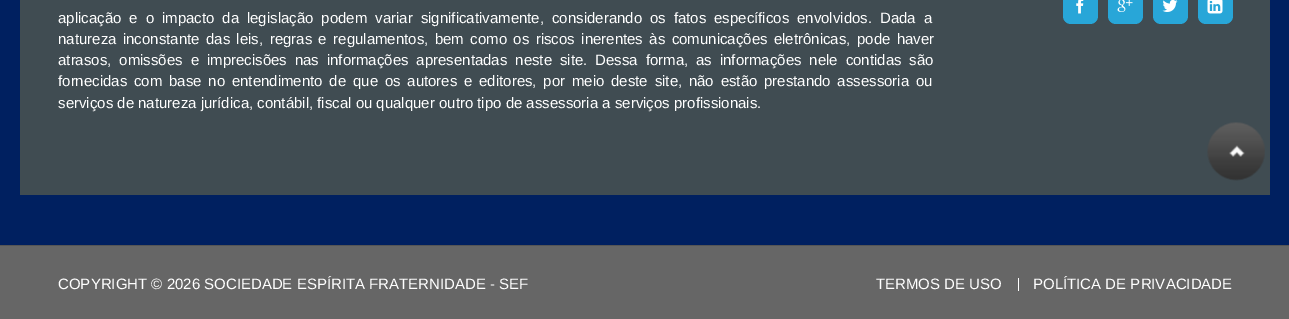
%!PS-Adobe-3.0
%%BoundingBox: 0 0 1289 319
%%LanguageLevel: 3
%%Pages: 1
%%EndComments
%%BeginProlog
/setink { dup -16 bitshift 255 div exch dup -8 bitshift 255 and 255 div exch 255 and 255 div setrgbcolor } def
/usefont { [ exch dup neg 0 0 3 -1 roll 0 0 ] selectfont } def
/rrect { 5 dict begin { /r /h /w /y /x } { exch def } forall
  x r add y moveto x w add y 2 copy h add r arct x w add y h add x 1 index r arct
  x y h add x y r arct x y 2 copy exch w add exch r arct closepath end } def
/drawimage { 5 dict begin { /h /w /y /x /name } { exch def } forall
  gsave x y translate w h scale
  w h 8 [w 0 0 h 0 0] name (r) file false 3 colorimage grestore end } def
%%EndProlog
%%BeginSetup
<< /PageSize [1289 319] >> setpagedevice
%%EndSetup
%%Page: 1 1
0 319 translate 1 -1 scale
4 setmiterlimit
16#002060 setink
0 0 1289 319 rectfill
16#404C52 setink
20 0 1250 195 rectfill
/LiberationSans-Regular 15 usefont
16#FFFFFF setink
58 23 moveto 3.75 0 32 (aplicação e o impacto da legislação podem variar significativamente, considerando os fatos específicos envolvidos. Dada a) widthshow
58 44 moveto 2.25 0 32 (natureza inconstante das leis, regras e regulamentos, bem como os riscos inerentes às comunicações eletrônicas, pode haver) widthshow
58 65 moveto 3.75 0 32 (atrasos, omissões e imprecisões nas informações apresentadas neste site. Dessa forma, as informações nele contidas são) widthshow
58 86 moveto 2.6 0 32 (fornecidas com base no entendimento de que os autores e editores, por meio deste site, não estão prestando assessoria ou) widthshow
58 108 moveto (serviços de natureza jurídica, contábil, fiscal ou qualquer outro tipo de assessoria a serviços profissionais.) show
16#28A6D8 setink
1063 -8 35 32 8 rrect fill
(img1.raw) 1076 0 8 14 drawimage
1108 -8 35 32 8 rrect fill
(img2.raw) 1117 0 16 12 drawimage
1153 -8 35 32 8 rrect fill
(img3.raw) 1162 0 16 12 drawimage
1198 -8 35 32 8 rrect fill
(img4.raw) 1207 0 16 14 drawimage
(img5.raw) 1207 122 58 59 drawimage
16#666666 setink
0 246 1289 73 rectfill
16#555555 setink
0 245 1289 1 rectfill
16#FFFFFF setink
58 289 moveto (COPYRIGHT © 2026 SOCIEDADE ESPÍRITA FRATERNIDADE - SEF) show
1018 278 1 13 rectfill
876 289 moveto (TERMOS DE USO) show
1033 289 moveto (POLÍTICA DE PRIVACIDADE) show
showpage
%%EOF
